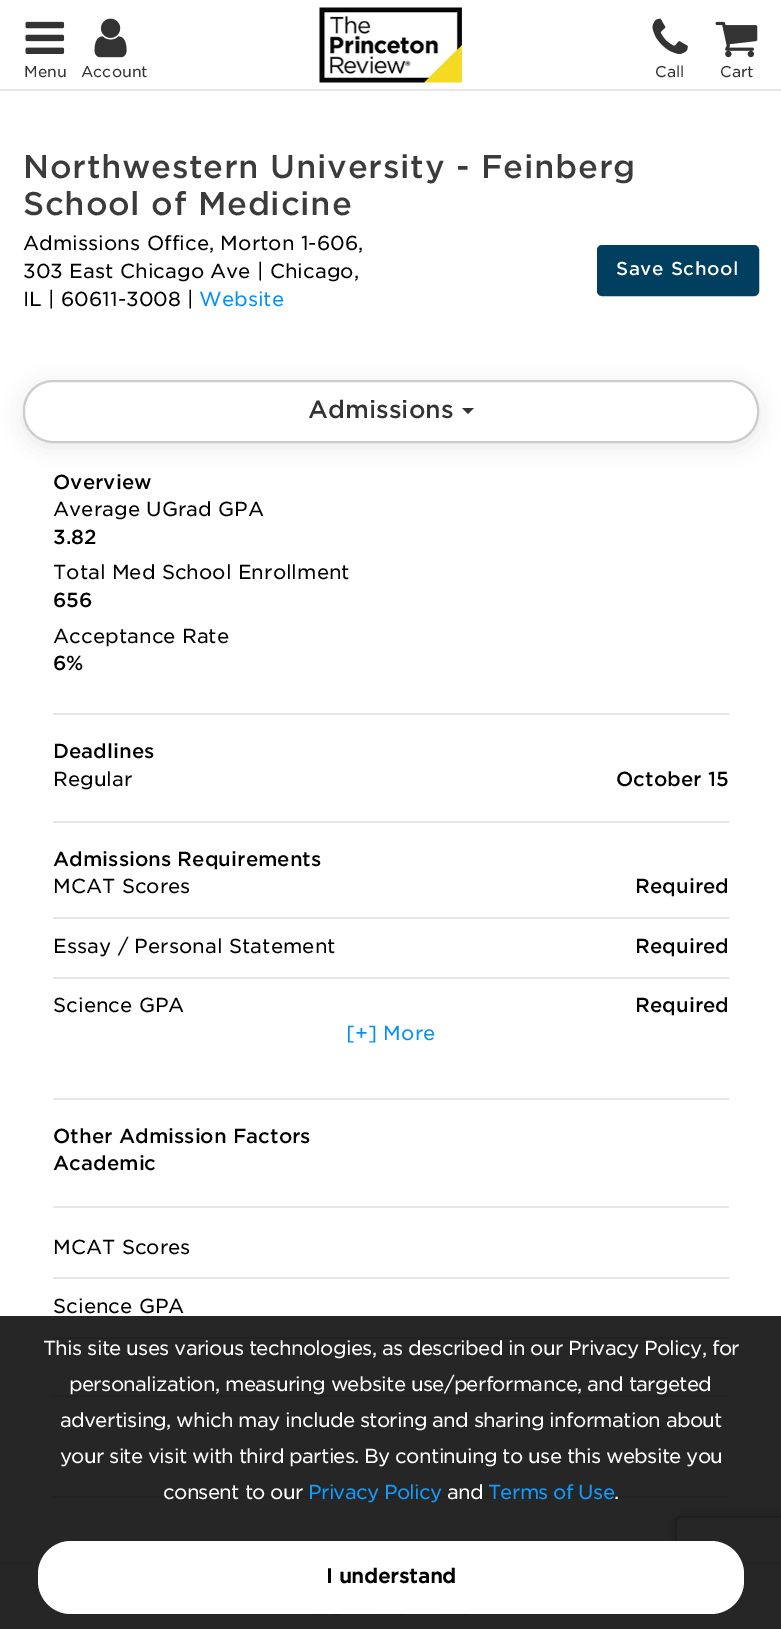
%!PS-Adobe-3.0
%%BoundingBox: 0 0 781 1629
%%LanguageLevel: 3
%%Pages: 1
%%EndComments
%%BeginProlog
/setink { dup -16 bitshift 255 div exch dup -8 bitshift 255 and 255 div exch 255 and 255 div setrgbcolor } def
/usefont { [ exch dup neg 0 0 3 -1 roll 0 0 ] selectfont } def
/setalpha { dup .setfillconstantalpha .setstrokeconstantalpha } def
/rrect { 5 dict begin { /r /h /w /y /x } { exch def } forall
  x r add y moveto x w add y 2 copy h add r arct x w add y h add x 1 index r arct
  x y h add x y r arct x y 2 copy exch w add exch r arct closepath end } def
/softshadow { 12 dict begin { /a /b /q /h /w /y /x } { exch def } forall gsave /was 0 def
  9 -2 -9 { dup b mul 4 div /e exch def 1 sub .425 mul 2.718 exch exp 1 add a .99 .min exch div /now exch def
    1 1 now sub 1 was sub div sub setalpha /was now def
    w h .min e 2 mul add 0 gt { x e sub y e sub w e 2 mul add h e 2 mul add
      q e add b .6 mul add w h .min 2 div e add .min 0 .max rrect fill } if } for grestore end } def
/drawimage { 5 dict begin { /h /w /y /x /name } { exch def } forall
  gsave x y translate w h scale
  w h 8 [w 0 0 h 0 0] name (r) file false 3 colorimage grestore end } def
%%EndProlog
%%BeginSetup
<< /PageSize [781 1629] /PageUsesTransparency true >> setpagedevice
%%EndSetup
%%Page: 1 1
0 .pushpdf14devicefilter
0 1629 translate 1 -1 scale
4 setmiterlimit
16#FFFFFF setink
0 0 781 1629 rectfill
16#E7E7E7 setink
0 89 781 2 rectfill
(img1.raw) 25 21 40 33 drawimage
/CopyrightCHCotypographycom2-Light 15 usefont
16#333333 setink
24 77 moveto (Menu) show
(img2.raw) 94 18 33 40 drawimage
81 77 moveto (Account) show
(img3.raw) 319 7 143 76 drawimage
(img4.raw) 652 18 36 36 drawimage
655 77 moveto (Call) show
(img5.raw) 715 21 43 37 drawimage
720 77 moveto (Cart) show
/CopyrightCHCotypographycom-Light 31.5 usefont
16#3B3B3B setink
23 178 moveto 0.65 0 (Northwestern University - Feinberg) ashow
23 215 moveto 0.65 0 (School of Medicine) ashow
/CopyrightCHCotypographycom2-Light 19.5 usefont
16#000000 setink
[
    [(Admissions Office, Morton 1-606,) 23 250]
    [(303 East Chicago Ave | Chicago,) 23 278]
    [(IL | 60611-3008 |) 23 306]
] { aload pop moveto show } forall
16#0490F4 setink
199 306 moveto (Website) show
16#003F5F setink
598 246 160 49 4 rrect gsave fill grestore
2 setlinewidth
stroke
/CopyrightCHCotypographycom-Light 18 usefont
16#FFFFFF setink
616 275 moveto 0.6 0 (Save School) ashow
16#C8C8C8 setink
23 384 736 63 30 11 0.43 softshadow
16#FFFFFF setink
24 381 734 61 29 rrect gsave fill grestore
16#CCCCCC setink
stroke
/CopyrightCHCotypographycom-Light 24 usefont
16#333333 setink
308 418 moveto (Admissions) show
462 408 moveto 474 408 lineto 468 414 lineto closepath fill
/CopyrightCHCotypographycom-Light 19.5 usefont
16#000000 setink
53 489 moveto (Overview) show
/CopyrightCHCotypographycom2-Light 19.5 usefont
53 516 moveto (Average UGrad GPA) show
/CopyrightCHCotypographycom-Light 19.5 usefont
53 544 moveto (3.82) show
/CopyrightCHCotypographycom2-Light 19.5 usefont
53 579 moveto (Total Med School Enrollment) show
/CopyrightCHCotypographycom-Light 19.5 usefont
53 607 moveto (656) show
/CopyrightCHCotypographycom2-Light 19.5 usefont
53 643 moveto (Acceptance Rate) show
/CopyrightCHCotypographycom-Light 19.5 usefont
53 670 moveto (6%) show
16#E7E7E7 setink
53 713 676 2 rectfill
16#000000 setink
53 758 moveto (Deadlines) show
/CopyrightCHCotypographycom2-Light 19.5 usefont
53 786 moveto (Regular) show
/CopyrightCHCotypographycom-Light 19.5 usefont
616 786 moveto (October 15) show
16#E7E7E7 setink
53 821 676 2 rectfill
16#000000 setink
53 866 moveto (Admissions Requirements) show
/CopyrightCHCotypographycom2-Light 19.5 usefont
53 893 moveto (MCAT Scores) show
/CopyrightCHCotypographycom-Light 19.5 usefont
635 893 moveto (Required) show
16#E7E7E7 setink
53 917 676 2 rectfill
/CopyrightCHCotypographycom2-Light 19.5 usefont
16#000000 setink
53 953 moveto (Essay / Personal Statement) show
/CopyrightCHCotypographycom-Light 19.5 usefont
635 953 moveto (Required) show
16#E7E7E7 setink
53 977 676 2 rectfill
/CopyrightCHCotypographycom2-Light 19.5 usefont
16#000000 setink
53 1012 moveto (Science GPA) show
/CopyrightCHCotypographycom-Light 19.5 usefont
635 1012 moveto (Required) show
/CopyrightCHCotypographycom2-Light 19.5 usefont
16#0490F4 setink
346 1040 moveto ([+] More) show
16#E7E7E7 setink
53 1098 676 2 rectfill
/CopyrightCHCotypographycom-Light 19.5 usefont
16#000000 setink
53 1143 moveto (Other Admission Factors) show
53 1170 moveto (Academic) show
16#E7E7E7 setink
53 1206 676 2 rectfill
/CopyrightCHCotypographycom2-Light 19.5 usefont
16#000000 setink
53 1254 moveto (MCAT Scores) show
16#E7E7E7 setink
53 1277 676 2 rectfill
16#000000 setink
53 1313 moveto (Science GPA) show
[
    [53 1337 676 2 16#E7E7E7]
    [53 1395 676 2 16#E7E7E7]
    [53 1496 676 2 16#E7E7E7]
] { aload pop setink rectfill } forall
gsave
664 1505 moveto 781 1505 lineto 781 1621 lineto 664 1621 lineto closepath 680 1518 moveto 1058 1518 lineto 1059.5 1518 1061 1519.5 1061 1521 curveto 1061 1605 lineto 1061 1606.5 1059.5 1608 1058 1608 curveto 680 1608 lineto 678.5 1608 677 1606.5 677 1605 curveto 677 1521 lineto 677 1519.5 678.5 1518 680 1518 curveto closepath eoclip newpath
16#808080 setink
677 1518 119 90 3 4 1 softshadow
grestore
16#FFFFFF setink
669 1564 112 52 rectfill
16#F3F3F3 setink
0 1562 781 2 rectfill
(img6.raw) 311 1614 31 1 drawimage
(img7.raw) 376 1614 31 1 drawimage
(img8.raw) 439 1614 31 1 drawimage
0.85 setalpha
16#000000 setink
0 1316 781 313 rectfill
1 setalpha
16#FFFFFF setink
43 1355 moveto -0.75 0 (This site uses various technologies, as described in our Privacy Policy, for) ashow
69 1391 moveto -0.75 0 (personalization, measuring website use/performance, and targeted) ashow
60 1427 moveto -0.75 0 (advertising, which may include storing and sharing information about) ashow
60 1463 moveto -0.75 0 (your site visit with third parties. By continuing to use this website you) ashow
163 1499 moveto -0.75 0 (consent to our) ashow
16#139BFB setink
308 1499 moveto -0.75 0 (Privacy Policy) ashow
16#FFFFFF setink
447 1499 moveto -0.75 0 (and) ashow
16#139BFB setink
488 1499 moveto -0.75 0 (Terms of Use) ashow
16#FFFFFF setink
614 1499 moveto -0.75 0 (.) ashow
38 1541 706 73 33 rrect fill
/CopyrightCHCotypographycom-Bold 19.5 usefont
16#000000 setink
326 1583 moveto (I understand) show
.poppdf14devicefilter showpage
%%EOF
